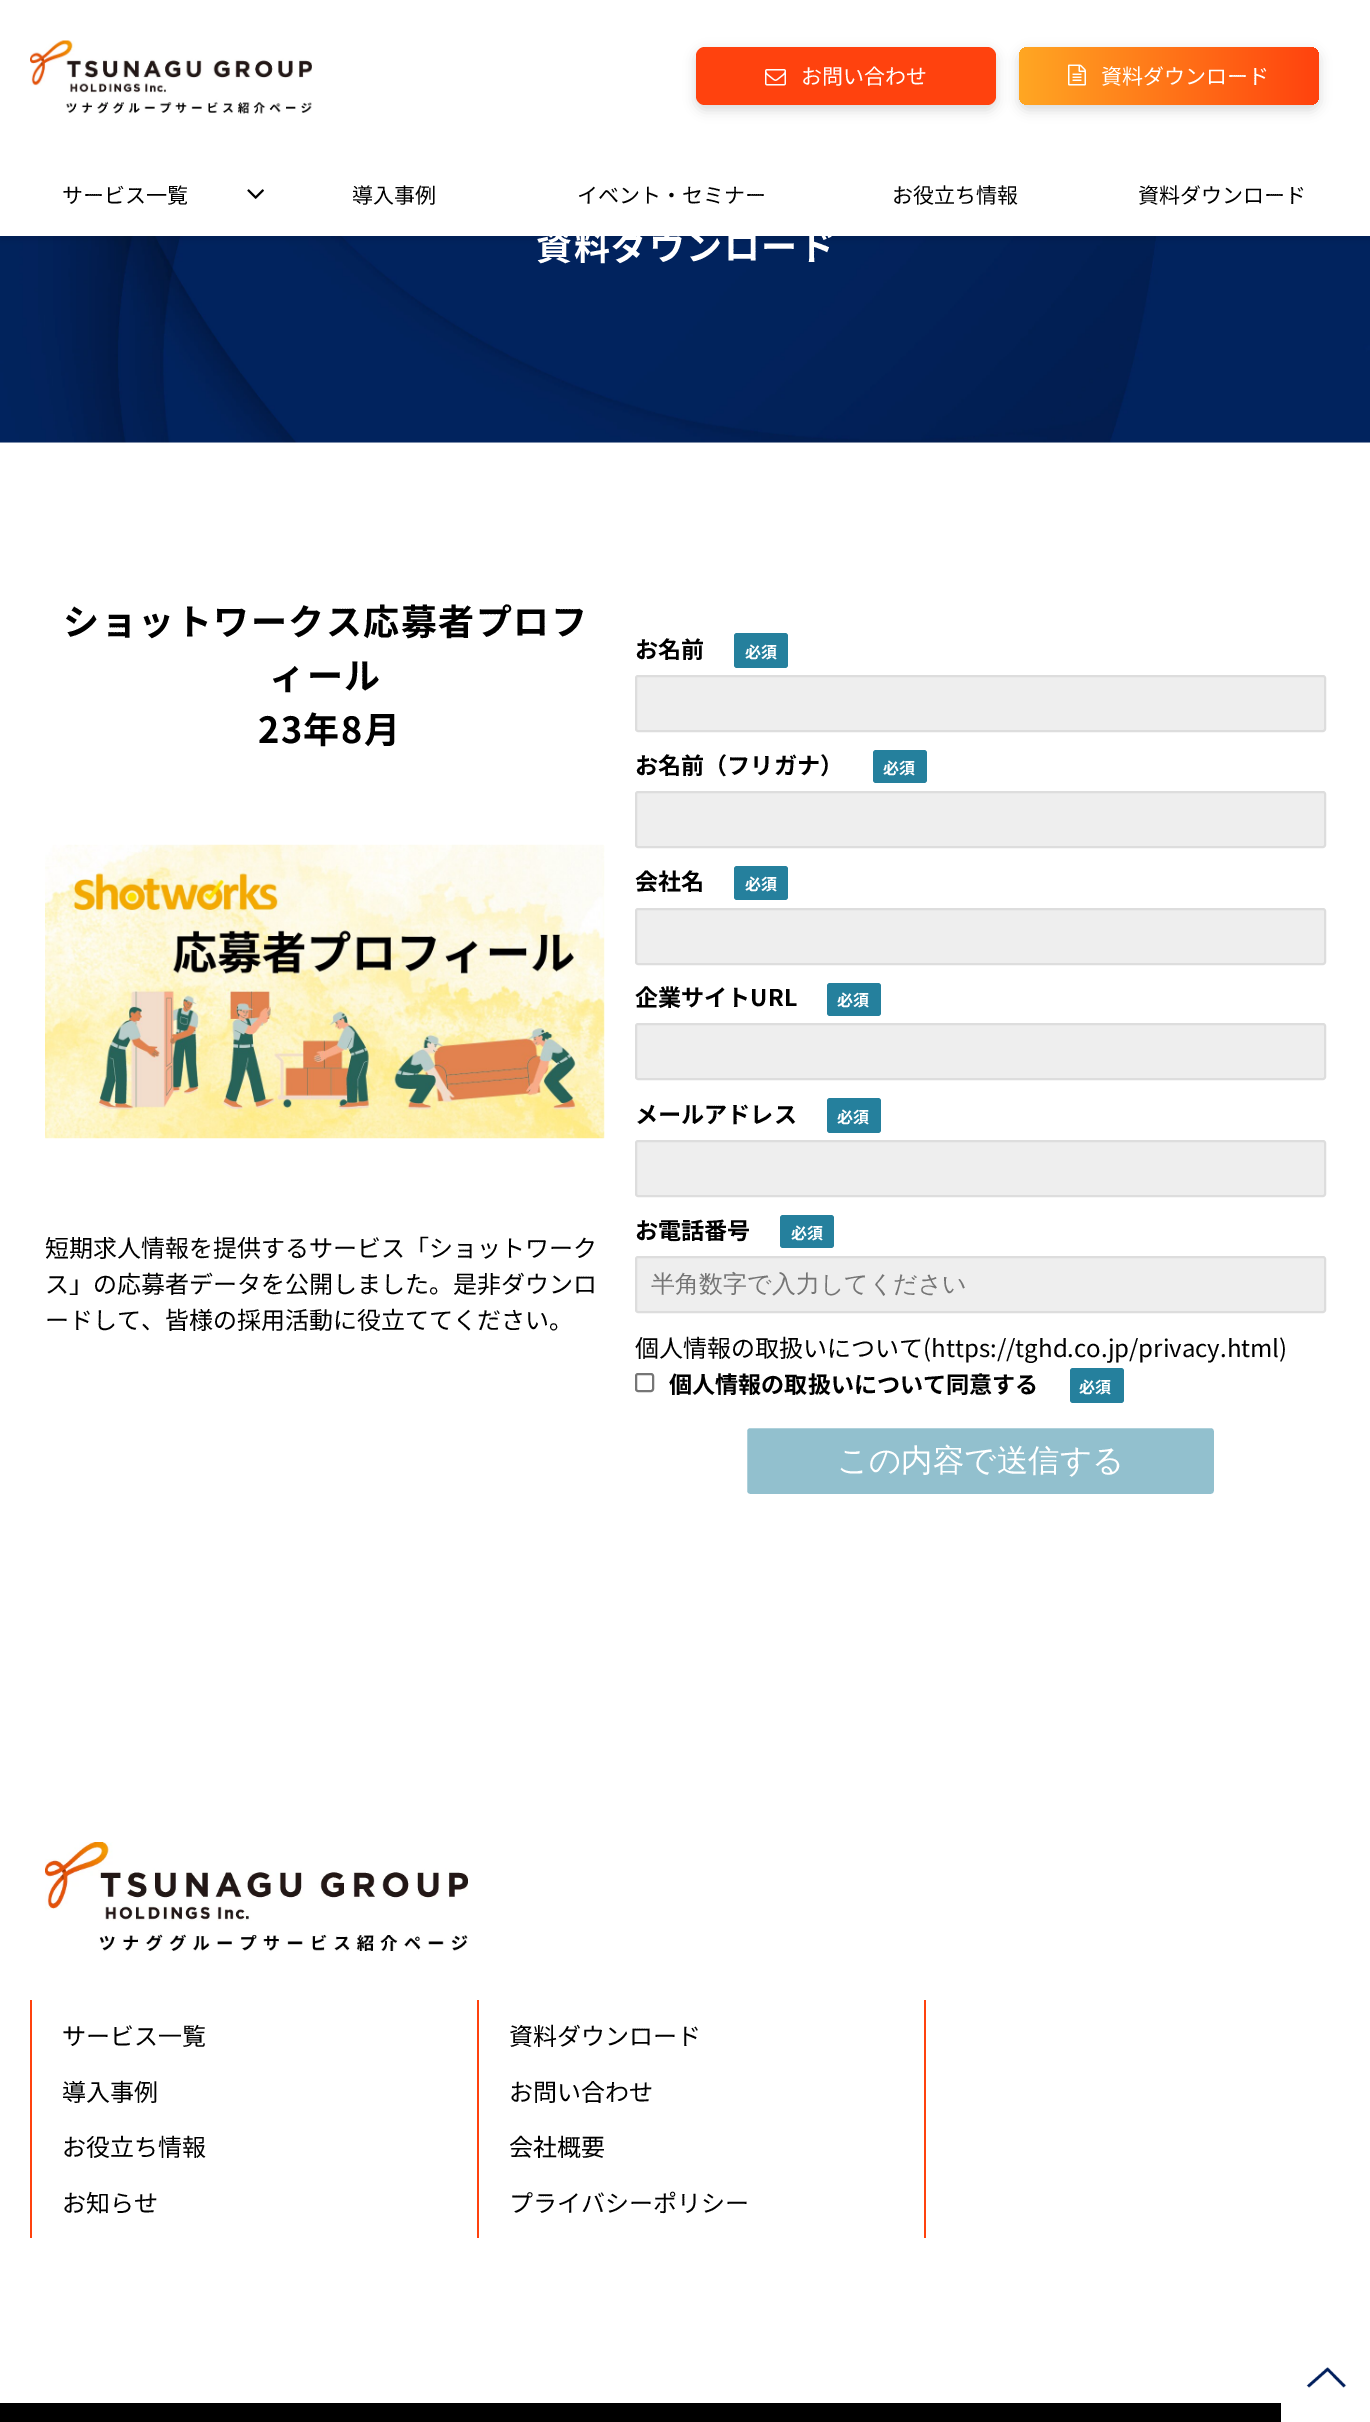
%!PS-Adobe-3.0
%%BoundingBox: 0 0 1370 2422
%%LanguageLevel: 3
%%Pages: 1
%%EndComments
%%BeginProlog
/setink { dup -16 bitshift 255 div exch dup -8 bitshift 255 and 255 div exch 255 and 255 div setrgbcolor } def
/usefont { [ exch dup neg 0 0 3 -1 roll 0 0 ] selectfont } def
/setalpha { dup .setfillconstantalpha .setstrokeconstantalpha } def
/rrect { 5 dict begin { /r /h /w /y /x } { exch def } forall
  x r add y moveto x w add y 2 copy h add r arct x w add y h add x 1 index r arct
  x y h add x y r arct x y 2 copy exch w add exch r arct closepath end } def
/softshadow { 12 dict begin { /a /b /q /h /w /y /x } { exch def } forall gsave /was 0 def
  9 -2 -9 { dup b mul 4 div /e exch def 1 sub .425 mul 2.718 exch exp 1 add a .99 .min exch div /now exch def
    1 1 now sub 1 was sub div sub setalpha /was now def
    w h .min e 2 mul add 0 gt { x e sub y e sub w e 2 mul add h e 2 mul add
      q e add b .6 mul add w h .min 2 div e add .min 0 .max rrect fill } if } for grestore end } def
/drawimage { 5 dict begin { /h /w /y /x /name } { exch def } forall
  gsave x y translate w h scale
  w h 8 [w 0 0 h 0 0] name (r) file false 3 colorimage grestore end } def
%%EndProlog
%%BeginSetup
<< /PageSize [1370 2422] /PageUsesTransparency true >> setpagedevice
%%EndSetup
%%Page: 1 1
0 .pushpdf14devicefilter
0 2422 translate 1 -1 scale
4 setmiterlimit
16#FFFFFF setink
0 0 1370 2422 rectfill
16#F6F6F6 setink
0 442 1370 1 rectfill
(img5.raw) 0 236 1370 207 drawimage
16#000000 setink
0 5 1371 235 0 4.5 0.1 softshadow
16#FFFFFF setink
0 0 1370 236 rectfill
(img1.raw) 30 40 282 74 drawimage
16#000000 setink
696 51 300 59 9 6 0.15 softshadow
16#FF420E setink
696 47 300 58 9 rrect fill
(img2.raw) 765 69 21 17 drawimage
/NotoSansJP-Regular 21 usefont
16#FFFFFF setink
801 84 moveto (お問い合わせ) show
16#000000 setink
1019 51 300 59 9 6 0.15 softshadow
gsave 1019 47 300 58 9 rrect clip newpath
<< /ShadingType 2 /ColorSpace /DeviceRGB /Coords [1019 76 1319 76] /Extend [true true] /Function << /FunctionType 2 /Domain [0 1] /C0 [1 0.655 0.137] /C1 [1 0.259 0.055] /N 1 >> >> shfill grestore
(img3.raw) 1068 64 18 22 drawimage
16#FFFFFF setink
1101 84 moveto (資料ダウンロード) show
16#000000 setink
62 203 moveto (サービス一覧) show
(img4.raw) 247 189 17 10 drawimage
[
    [(導入事例) 352 203]
    [(イベント・セミナー) 577 203]
    [(お役立ち情報) 892 203]
    [(資料ダウンロード) 1138 203]
] { aload pop moveto show } forall
/NotoSansJP-Bold 36 usefont
16#FFFFFF setink
536 260 moveto 1.5 0 (資料ダウンロード) ashow
16#000000 setink
63 635 moveto 1.5 0 (ショットワークス応募者プロフ) ashow
269 689 moveto 1.5 0 (ィール) ashow
258 743 moveto 1.5 0 (23年8月) ashow
(img6.raw) 45 844 560 295 drawimage
/NotoSansJP-Regular 24 usefont
[
    [(短期求人情報を提供するサービス「ショットワーク) 45 1257]
    [(ス」の応募者データを公開しました。是非ダウンロ) 45 1293]
    [(ードして、皆様の採用活動に役立ててください。) 45 1329]
] { aload pop moveto show } forall
/NotoSansJP-Bold 23.1 usefont
635 658 moveto (お名前) show
16#25809D setink
734 633 54 35 3 rrect fill
/NotoSansJP-Bold 16 usefont
16#FFFFFF setink
745 658 moveto (必須) show
16#EEEEEE setink
636 676 689 55 2 rrect gsave fill grestore
16#DDDDDD setink
2 setlinewidth
stroke
/NotoSansJP-Bold 23.1 usefont
16#000000 setink
635 774 moveto (お名前（フリガナ）) show
16#25809D setink
873 750 54 33 3 rrect fill
/NotoSansJP-Bold 16 usefont
16#FFFFFF setink
883 774 moveto (必須) show
16#EEEEEE setink
636 792 689 55 2 rrect gsave fill grestore
16#DDDDDD setink
stroke
/NotoSansJP-Bold 23.1 usefont
16#000000 setink
635 890 moveto (会社名) show
16#25809D setink
734 866 54 34 3 rrect fill
/NotoSansJP-Bold 16 usefont
16#FFFFFF setink
745 890 moveto (必須) show
16#EEEEEE setink
636 909 689 55 2 rrect gsave fill grestore
16#DDDDDD setink
stroke
/NotoSansJP-Bold 23.1 usefont
16#000000 setink
635 1006 moveto (企業サイトURL) show
16#25809D setink
827 983 54 33 3 rrect fill
/NotoSansJP-Bold 16 usefont
16#FFFFFF setink
837 1006 moveto (必須) show
16#EEEEEE setink
636 1024 689 55 2 rrect gsave fill grestore
16#DDDDDD setink
stroke
/NotoSansJP-Bold 23.1 usefont
16#000000 setink
635 1123 moveto (メールアドレス) show
16#25809D setink
827 1098 54 35 3 rrect fill
/NotoSansJP-Bold 16 usefont
16#FFFFFF setink
837 1123 moveto (必須) show
16#EEEEEE setink
636 1141 689 55 2 rrect gsave fill grestore
16#DDDDDD setink
stroke
/NotoSansJP-Bold 23.1 usefont
16#000000 setink
635 1239 moveto (お電話番号) show
16#25809D setink
780 1215 54 33 3 rrect fill
/NotoSansJP-Bold 16 usefont
16#FFFFFF setink
791 1239 moveto (必須) show
16#EEEEEE setink
636 1257 689 55 2 rrect gsave fill grestore
16#DDDDDD setink
stroke
/WenQuanYiZenHei-Medium 24 usefont
16#757575 setink
651 1292 moveto (半角数字で入力してください) show
/NotoSansJP-Regular 24 usefont
16#000000 setink
635 1357 moveto (個人情報の取扱いについて\(https://tghd.co.jp/privacy.html\)) show
16#767676 setink
636 1374 17 17 2 rrect stroke
/NotoSansJP-Bold 23.1 usefont
16#000000 setink
669 1393 moveto (個人情報の取扱いについて同意する) show
16#25809D setink
1070 1368 54 35 3 rrect fill
/NotoSansJP-Bold 16 usefont
16#FFFFFF setink
1079 1393 moveto (必須) show
16#92C0CE setink
745.5 1426.5 470 69 4.5 rrect gsave fill grestore
16#FFFFFF setink
3 setlinewidth
stroke
/WenQuanYiZenHei-Medium 31.5 usefont
837 1471 moveto (この内容で送信する) show
(img7.raw) 45 1842 423 110 drawimage
16#FF420E setink
30 2000 2 238 rectfill
/NotoSansJP-Regular 24 usefont
16#000000 setink
[
    [(サービス一覧) 62 2045]
    [(導入事例) 62 2101]
    [(お役立ち情報) 62 2156]
    [(お知らせ) 62 2212]
] { aload pop moveto show } forall
16#FF420E setink
477 2000 2 238 rectfill
16#000000 setink
[
    [(資料ダウンロード) 509 2045]
    [(お問い合わせ) 509 2101]
    [(会社概要) 509 2156]
    [(プライバシーポリシー) 509 2212]
] { aload pop moveto show } forall
16#FF420E setink
924 2000 2 238 rectfill
(img8.raw) 1281 2367 89 55 drawimage
16#000000 setink
0 2403 1281 19 rectfill
.poppdf14devicefilter showpage
%%EOF
